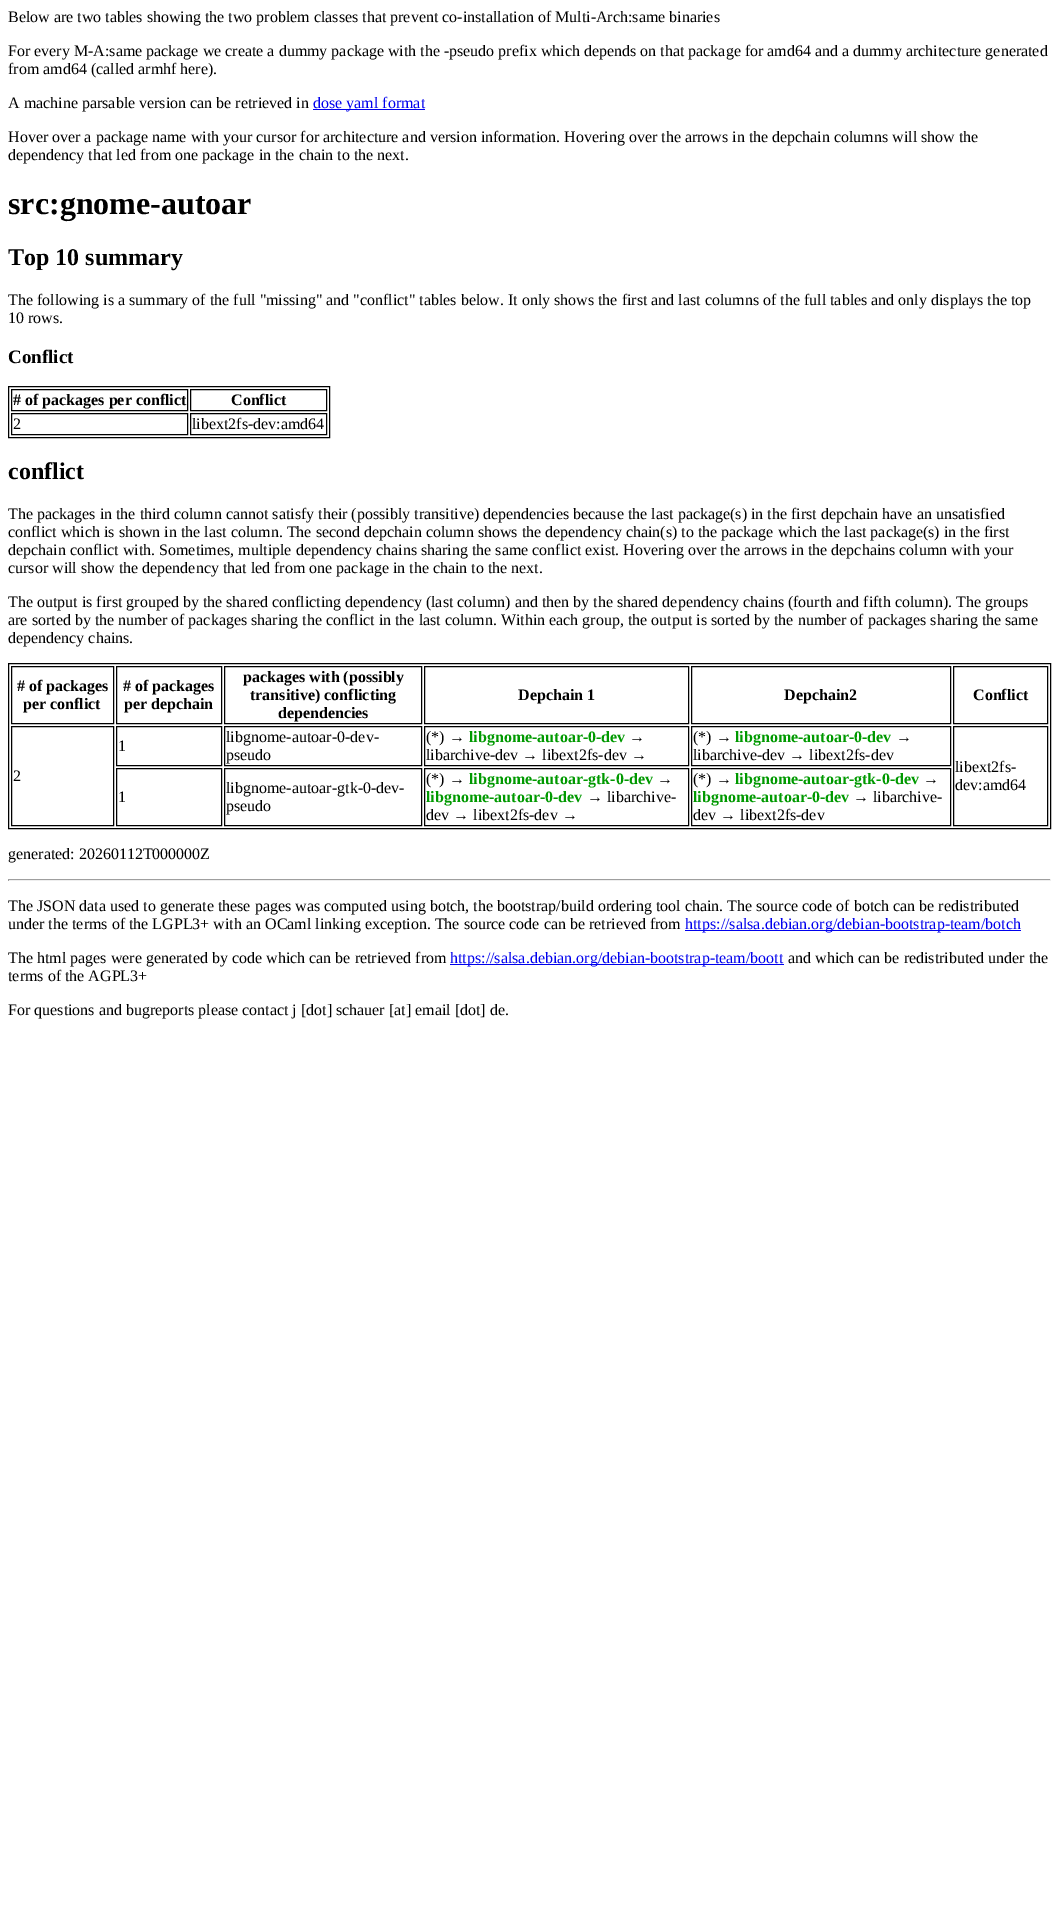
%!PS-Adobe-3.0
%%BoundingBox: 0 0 1059 1913
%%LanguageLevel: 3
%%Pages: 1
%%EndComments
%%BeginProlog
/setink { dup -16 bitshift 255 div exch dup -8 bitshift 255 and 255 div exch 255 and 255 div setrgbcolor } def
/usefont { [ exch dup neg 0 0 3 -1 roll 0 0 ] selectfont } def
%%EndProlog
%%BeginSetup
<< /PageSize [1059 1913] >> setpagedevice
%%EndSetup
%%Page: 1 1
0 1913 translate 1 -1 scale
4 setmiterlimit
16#FFFFFF setink
0 0 1059 1913 rectfill
/LiberationSerif-Regular 16 usefont
16#000000 setink
[
    [(Below are two tables showing the two problem classes that prevent co-installation of Multi-Arch:same binaries) 8 22]
    [(For every M-A:same package we create a dummy package with the -pseudo prefix which depends on that package for amd64 and a dummy architecture generated) 8 56]
    [(from amd64 \(called armhf here\).) 8 74]
    [(A machine parsable version can be retrieved in) 8 108]
] { aload pop moveto show } forall
16#0000EE setink
313 109 112 1 rectfill
313 108 moveto (dose yaml format) show
16#000000 setink
8 142 moveto (Hover over a package name with your cursor for architecture and version information. Hovering over the arrows in the depchain columns will show the) show
8 160 moveto (dependency that led from one package in the chain to the next.) show
/LiberationSerif-Bold 32 usefont
8 214 moveto (src:gnome-autoar) show
/LiberationSerif-Bold 24 usefont
8 265 moveto (Top 10 summary) show
/LiberationSerif-Regular 16 usefont
8 305 moveto (The following is a summary of the full "missing" and "conflict" tables below. It only shows the first and last columns of the full tables and only displays the top) show
8 323 moveto (10 rows.) show
/LiberationSerif-Bold 19 usefont
8 363 moveto (Conflict) show
8.5 386.5 321 51 rectstroke
11.5 389.5 176 21 rectstroke
/LiberationSerif-Bold 16 usefont
13 405 moveto (# of packages per conflict) show
190.5 389.5 136 21 rectstroke
231 405 moveto (Conflict) show
11.5 413.5 176 21 rectstroke
/LiberationSerif-Regular 16 usefont
13 429 moveto (2) show
190.5 413.5 136 21 rectstroke
192 429 moveto (libext2fs-dev:amd64) show
/LiberationSerif-Bold 24 usefont
8 479 moveto (conflict) show
/LiberationSerif-Regular 16 usefont
[
    [(The packages in the third column cannot satisfy their \(possibly transitive\) dependencies because the last package\(s\) in the first depchain have an unsatisfied) 8 519]
    [(conflict which is shown in the last column. The second depchain column shows the dependency chain\(s\) to the package which the last package\(s\) in the first) 8 537]
    [(depchain conflict with. Sometimes, multiple dependency chains sharing the same conflict exist. Hovering over the arrows in the depchains column with your) 8 555]
    [(cursor will show the dependency that led from one package in the chain to the next.) 8 573]
    [(The output is first grouped by the shared conflicting dependency \(last column\) and then by the shared dependency chains \(fourth and fifth column\). The groups) 8 607]
    [(are sorted by the number of packages sharing the conflict in the last column. Within each group, the output is sorted by the number of packages sharing the same) 8 625]
    [(dependency chains.) 8 643]
] { aload pop moveto show } forall
8.5 663.5 1042 165 rectstroke
11.5 666.5 102 57 rectstroke
/LiberationSerif-Bold 16 usefont
17 691 moveto (# of packages) show
23 709 moveto (per conflict) show
116.5 666.5 105 57 rectstroke
123 691 moveto (# of packages) show
124 709 moveto (per depchain) show
224.5 666.5 197 57 rectstroke
[
    [(packages with \(possibly) 243 682]
    [(transitive\) conflicting) 250 700]
    [(dependencies) 278 718]
] { aload pop moveto show } forall
424.5 666.5 264 57 rectstroke
518 700 moveto (Depchain 1) show
691.5 666.5 259 57 rectstroke
784 700 moveto (Depchain2) show
953.5 666.5 94 57 rectstroke
973 700 moveto (Conflict) show
116.5 726.5 105 39 rectstroke
/LiberationSerif-Regular 16 usefont
118 751 moveto (1) show
224.5 726.5 197 39 rectstroke
226 742 moveto (libgnome-autoar-0-dev-) show
226 760 moveto (pseudo) show
424.5 726.5 264 39 rectstroke
426 742 moveto (\(*\) →) show
/LiberationSerif-Bold 16 usefont
16#009900 setink
469 742 moveto (libgnome-autoar-0-dev) show
/LiberationSerif-Regular 16 usefont
16#000000 setink
629 742 moveto (→) show
426 760 moveto (libarchive-dev → libext2fs-dev →) show
691.5 726.5 259 39 rectstroke
693 742 moveto (\(*\) →) show
/LiberationSerif-Bold 16 usefont
16#009900 setink
735 742 moveto (libgnome-autoar-0-dev) show
/LiberationSerif-Regular 16 usefont
16#000000 setink
896 742 moveto (→) show
693 760 moveto (libarchive-dev → libext2fs-dev) show
11.5 726.5 102 99 rectstroke
13 781 moveto (2) show
953.5 726.5 94 99 rectstroke
955 772 moveto (libext2fs-) show
955 790 moveto (dev:amd64) show
116.5 768.5 105 57 rectstroke
118 802 moveto (1) show
224.5 768.5 197 57 rectstroke
226 793 moveto (libgnome-autoar-gtk-0-dev-) show
226 811 moveto (pseudo) show
424.5 768.5 264 57 rectstroke
426 784 moveto (\(*\) →) show
/LiberationSerif-Bold 16 usefont
16#009900 setink
469 784 moveto (libgnome-autoar-gtk-0-dev) show
/LiberationSerif-Regular 16 usefont
16#000000 setink
657 784 moveto (→) show
/LiberationSerif-Bold 16 usefont
16#009900 setink
426 802 moveto (libgnome-autoar-0-dev) show
/LiberationSerif-Regular 16 usefont
16#000000 setink
587 802 moveto (→ libarchive-) show
426 820 moveto (dev → libext2fs-dev →) show
691.5 768.5 259 57 rectstroke
693 784 moveto (\(*\) →) show
/LiberationSerif-Bold 16 usefont
16#009900 setink
735 784 moveto (libgnome-autoar-gtk-0-dev) show
/LiberationSerif-Regular 16 usefont
16#000000 setink
923 784 moveto (→) show
/LiberationSerif-Bold 16 usefont
16#009900 setink
693 802 moveto (libgnome-autoar-0-dev) show
/LiberationSerif-Regular 16 usefont
16#000000 setink
[
    [(→ libarchive-) 853 802]
    [(dev → libext2fs-dev) 693 820]
    [(generated: 20260112T000000Z) 8 859]
] { aload pop moveto show } forall
[
    [8 879 1043 1 16#9F9F9F]
    [1050 879 1 2 16#EEEEEE]
    [8 880 1043 1 16#EEEEEE]
    [8 879 1 2 16#9F9F9F]
] { aload pop setink rectfill } forall
16#000000 setink
8 911 moveto (The JSON data used to generate these pages was computed using botch, the bootstrap/build ordering tool chain. The source code of botch can be redistributed) show
8 929 moveto (under the terms of the LGPL3+ with an OCaml linking exception. The source code can be retrieved from) show
16#0000EE setink
685 930 336 1 rectfill
685 929 moveto (https://salsa.debian.org/debian-bootstrap-team/botch) show
16#000000 setink
8 963 moveto (The html pages were generated by code which can be retrieved from) show
16#0000EE setink
450 964 334 1 rectfill
450 963 moveto (https://salsa.debian.org/debian-bootstrap-team/boott) show
16#000000 setink
[
    [(and which can be redistributed under the) 788 963]
    [(terms of the AGPL3+) 8 981]
    [(For questions and bugreports please contact j [dot] schauer [at] email [dot] de.) 8 1015]
] { aload pop moveto show } forall
showpage
%%EOF
